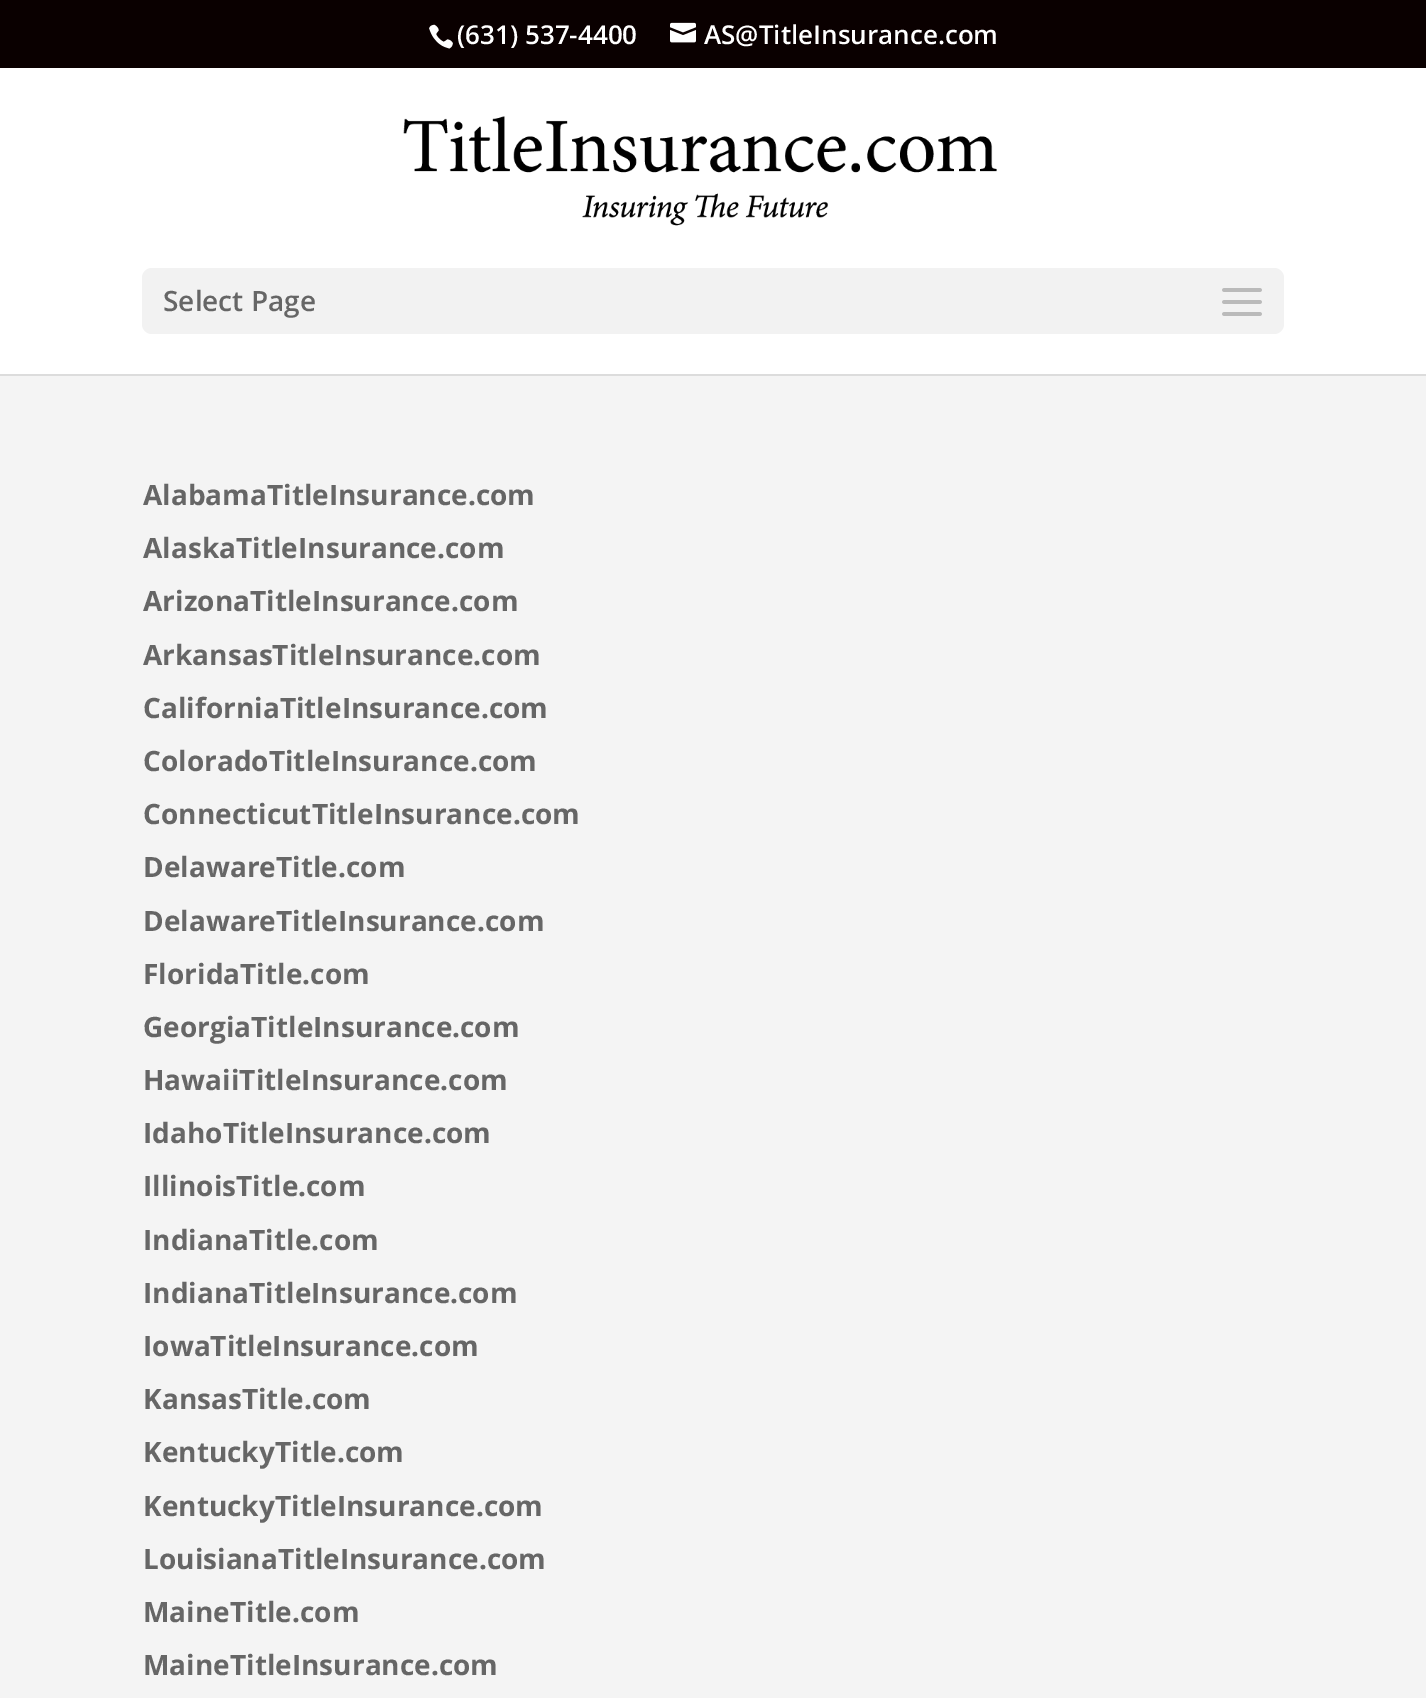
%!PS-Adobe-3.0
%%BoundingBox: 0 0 1426 1698
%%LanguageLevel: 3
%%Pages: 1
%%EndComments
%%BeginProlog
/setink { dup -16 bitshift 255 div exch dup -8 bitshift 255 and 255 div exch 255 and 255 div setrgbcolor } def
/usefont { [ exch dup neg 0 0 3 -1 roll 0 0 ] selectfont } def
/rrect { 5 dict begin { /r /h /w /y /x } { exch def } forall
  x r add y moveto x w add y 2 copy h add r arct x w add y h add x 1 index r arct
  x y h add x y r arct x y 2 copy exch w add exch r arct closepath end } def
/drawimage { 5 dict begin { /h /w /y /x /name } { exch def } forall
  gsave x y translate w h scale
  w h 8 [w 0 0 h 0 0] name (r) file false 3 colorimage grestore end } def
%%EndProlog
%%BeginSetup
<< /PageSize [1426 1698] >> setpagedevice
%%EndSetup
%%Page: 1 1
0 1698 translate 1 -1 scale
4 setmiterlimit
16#FFFFFF setink
0 0 1426 1698 rectfill
16#0A0000 setink
0 0 1426 68 rectfill
(img1.raw) 429 24 24 25 drawimage
/OpenSans-SemiBold 26 usefont
16#FFFFFF setink
457 44 moveto (\(631\) 537-4400) show
(img2.raw) 670 22 26 21 drawimage
704 44 moveto (AS@TitleInsurance.com) show
16#DCDCDC setink
0 374 1426 2 rectfill
(img3.raw) 403 116 594 110 drawimage
16#F2F2F2 setink
142 268 1142 66 10 rrect fill
/OpenSans-SemiBold 28 usefont
16#666666 setink
163 311 moveto (Select Page) show
(img4.raw) 1222 288 40 28 drawimage
16#F4F4F4 setink
0 376 1426 1322 rectfill
/OpenSans-Bold 28 usefont
16#666666 setink
[
    [(AlabamaTitleInsurance.com) 143 505]
    [(AlaskaTitleInsurance.com) 143 558]
    [(ArizonaTitleInsurance.com) 143 611]
    [(ArkansasTitleInsurance.com) 143 665]
    [(CaliforniaTitleInsurance.com) 143 718]
    [(ColoradoTitleInsurance.com) 143 771]
    [(ConnecticutTitleInsurance.com) 143 824]
    [(DelawareTitle.com) 143 877]
    [(DelawareTitleInsurance.com) 143 931]
    [(FloridaTitle.com) 143 984]
    [(GeorgiaTitleInsurance.com) 143 1037]
    [(HawaiiTitleInsurance.com) 143 1090]
    [(IdahoTitleInsurance.com) 143 1143]
    [(IllinoisTitle.com) 143 1196]
    [(IndianaTitle.com) 143 1250]
    [(IndianaTitleInsurance.com) 143 1303]
    [(IowaTitleInsurance.com) 143 1356]
    [(KansasTitle.com) 143 1409]
    [(KentuckyTitle.com) 143 1462]
    [(KentuckyTitleInsurance.com) 143 1516]
    [(LouisianaTitleInsurance.com) 143 1569]
    [(MaineTitle.com) 143 1622]
    [(MaineTitleInsurance.com) 143 1675]
] { aload pop moveto show } forall
showpage
%%EOF
